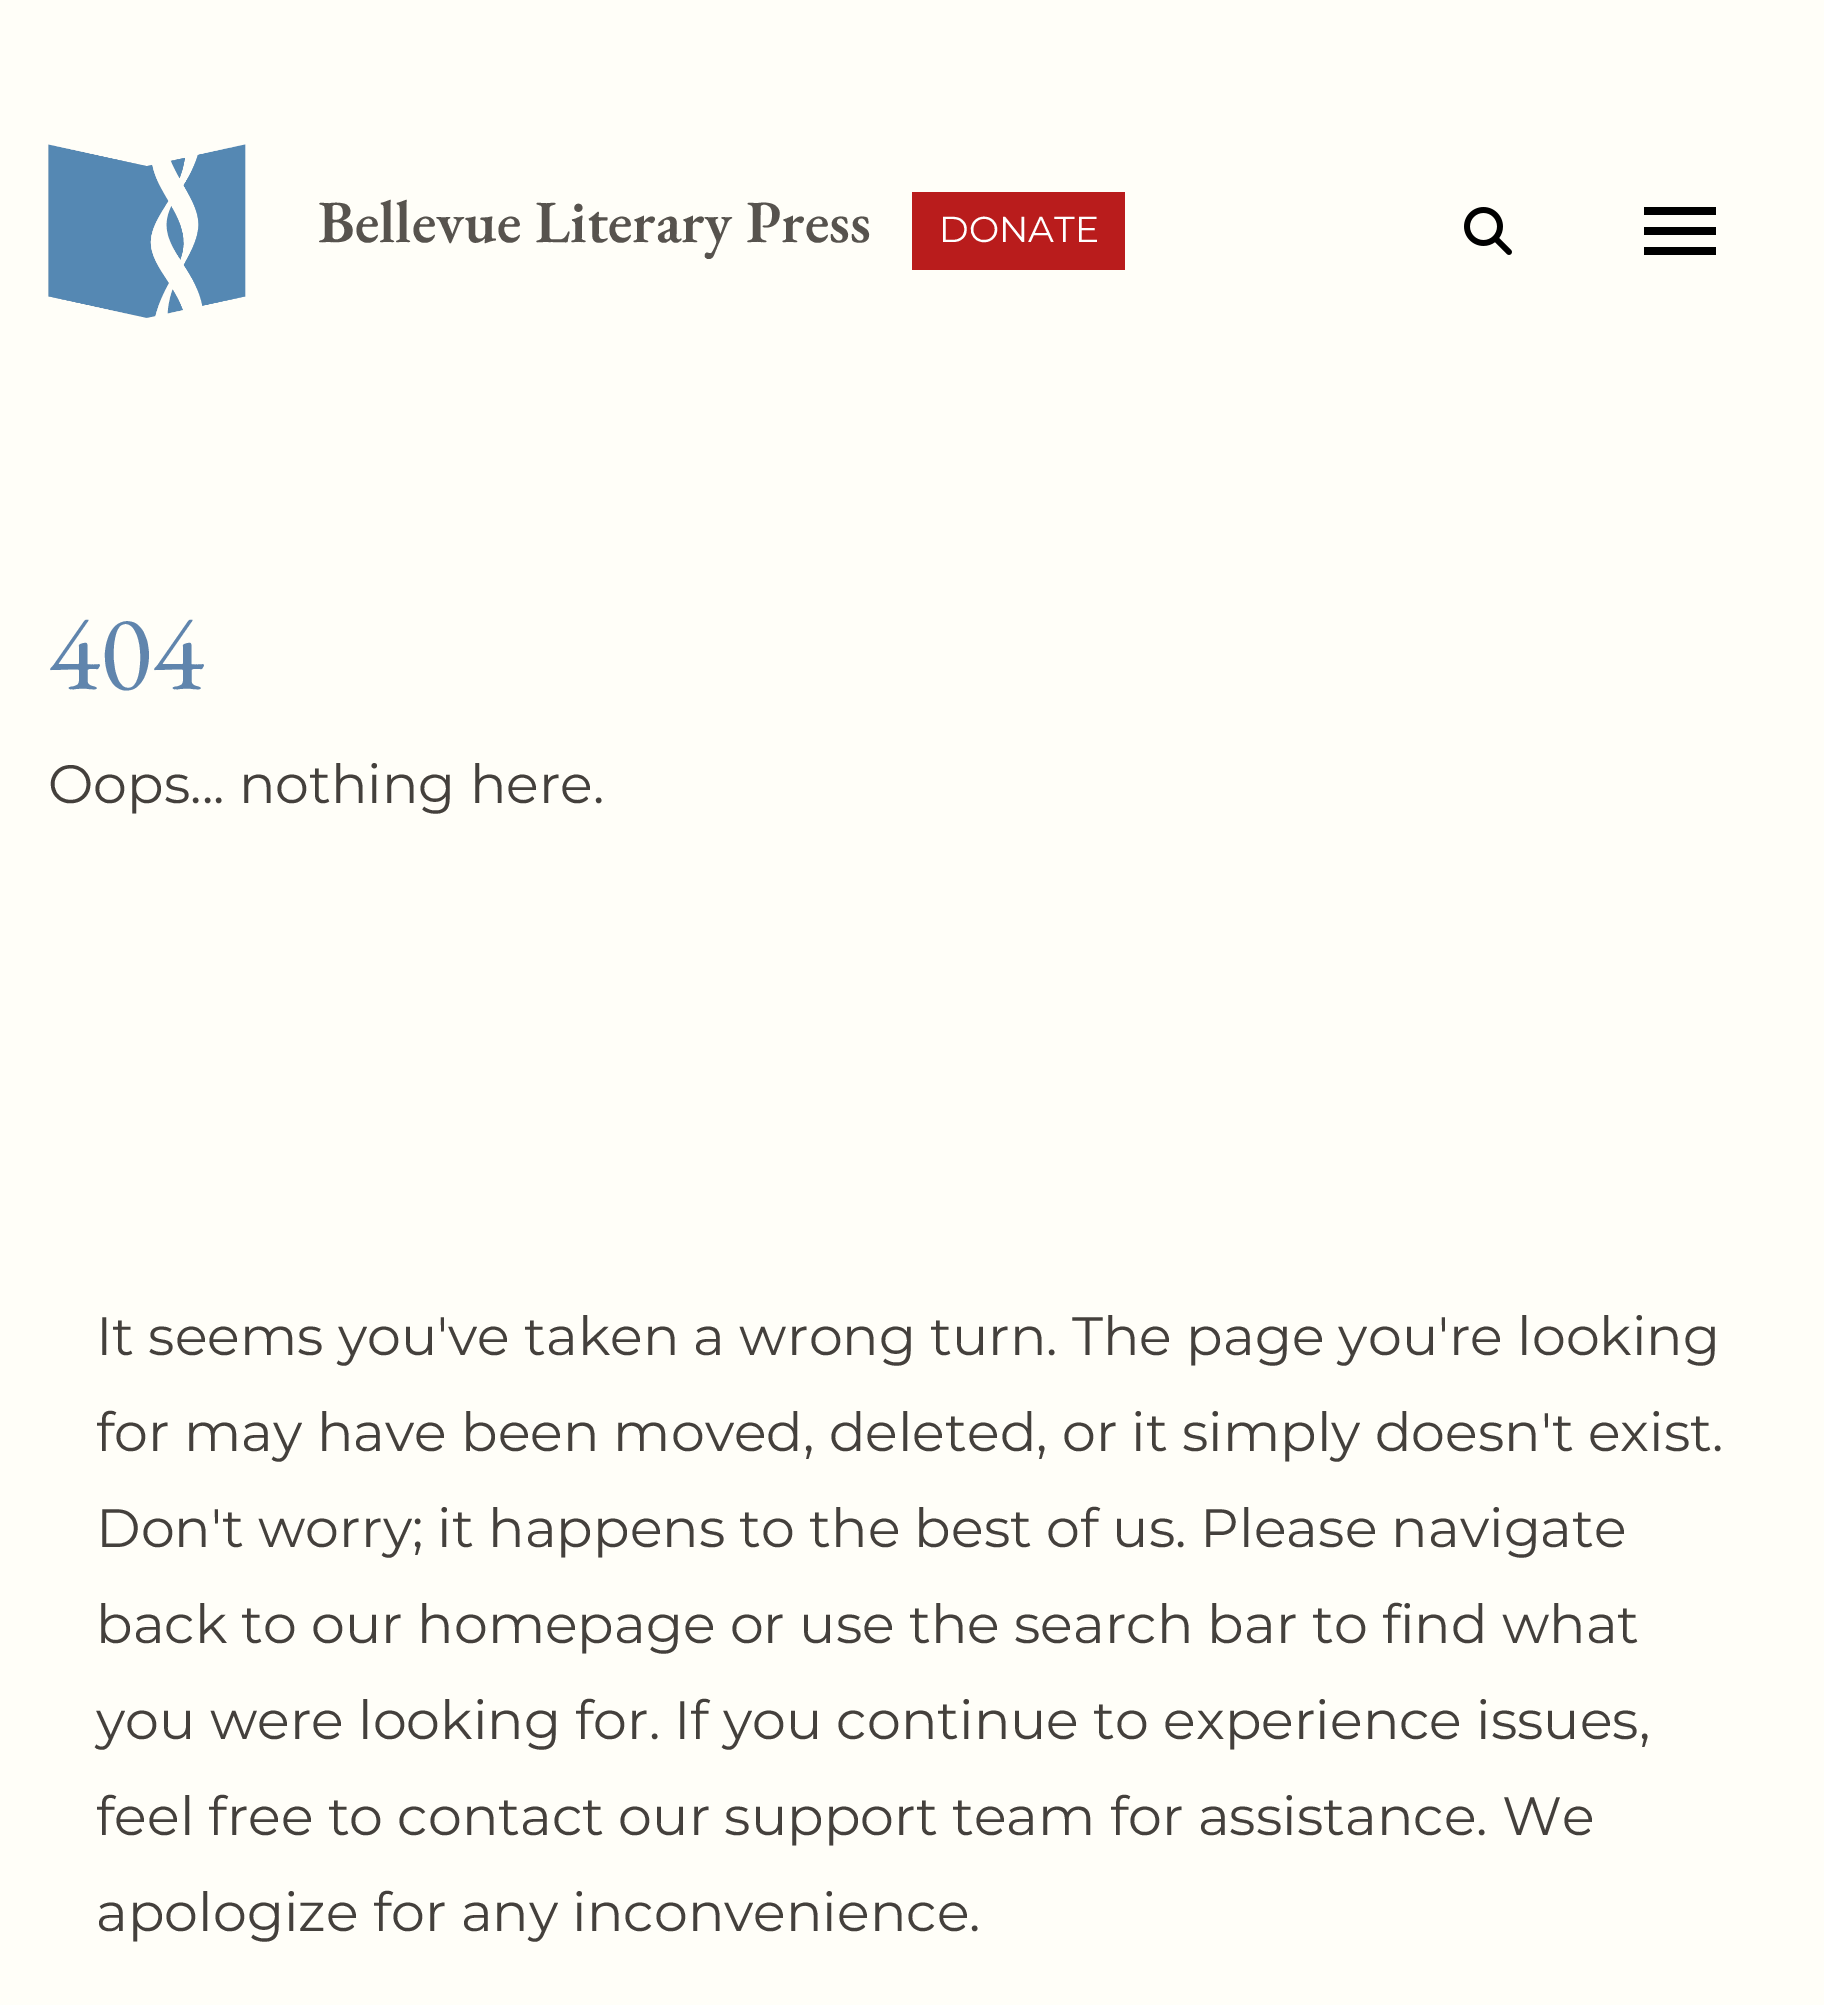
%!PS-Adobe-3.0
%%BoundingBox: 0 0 1824 2005
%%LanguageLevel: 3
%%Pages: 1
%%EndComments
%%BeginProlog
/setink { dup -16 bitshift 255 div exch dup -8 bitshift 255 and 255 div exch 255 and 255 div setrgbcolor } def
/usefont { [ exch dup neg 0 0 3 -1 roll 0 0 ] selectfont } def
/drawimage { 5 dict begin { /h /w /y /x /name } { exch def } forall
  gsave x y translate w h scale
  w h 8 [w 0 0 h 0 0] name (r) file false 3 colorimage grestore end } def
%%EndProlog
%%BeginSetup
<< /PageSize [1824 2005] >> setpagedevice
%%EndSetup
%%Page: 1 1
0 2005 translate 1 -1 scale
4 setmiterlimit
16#FFFEF8 setink
0 0 1824 2005 rectfill
(img1.raw) 48 144 198 174 drawimage
/EBGaramond-SemiBold 60 usefont
16#57534E setink
318 242 moveto (Bellevue Literary Press) show
16#B91C1C setink
912 192 213 78 rectfill
/Montserrat-Regular 36 usefont
16#FFFFFF setink
939 242 moveto (DONATE) show
(img2.raw) 1464 207 48 48 drawimage
16#000000 setink
1644 255 moveto 1716 255 lineto 1716 247 lineto 1644 247 lineto closepath 1644 235 moveto 1716 235 lineto 1716 227 lineto 1644 227 lineto closepath 1644 207 moveto 1644 215 lineto 1716 215 lineto 1716 207 lineto closepath fill
/EBGaramond-Regular 108 usefont
16#6085AD setink
48 689 moveto (404) show
/Montserrat-Regular 54 usefont
16#44403C setink
[
    [(Oops... nothing here.) 48 803]
    [(It seems you've taken a wrong turn. The page you're looking) 96 1355]
    [(for may have been moved, deleted, or it simply doesn't exist.) 96 1451]
    [(Don't worry; it happens to the best of us. Please navigate) 96 1547]
    [(back to our homepage or use the search bar to find what) 96 1643]
    [(you were looking for. If you continue to experience issues,) 96 1739]
    [(feel free to contact our support team for assistance. We) 96 1835]
    [(apologize for any inconvenience.) 96 1931]
] { aload pop moveto show } forall
showpage
%%EOF
